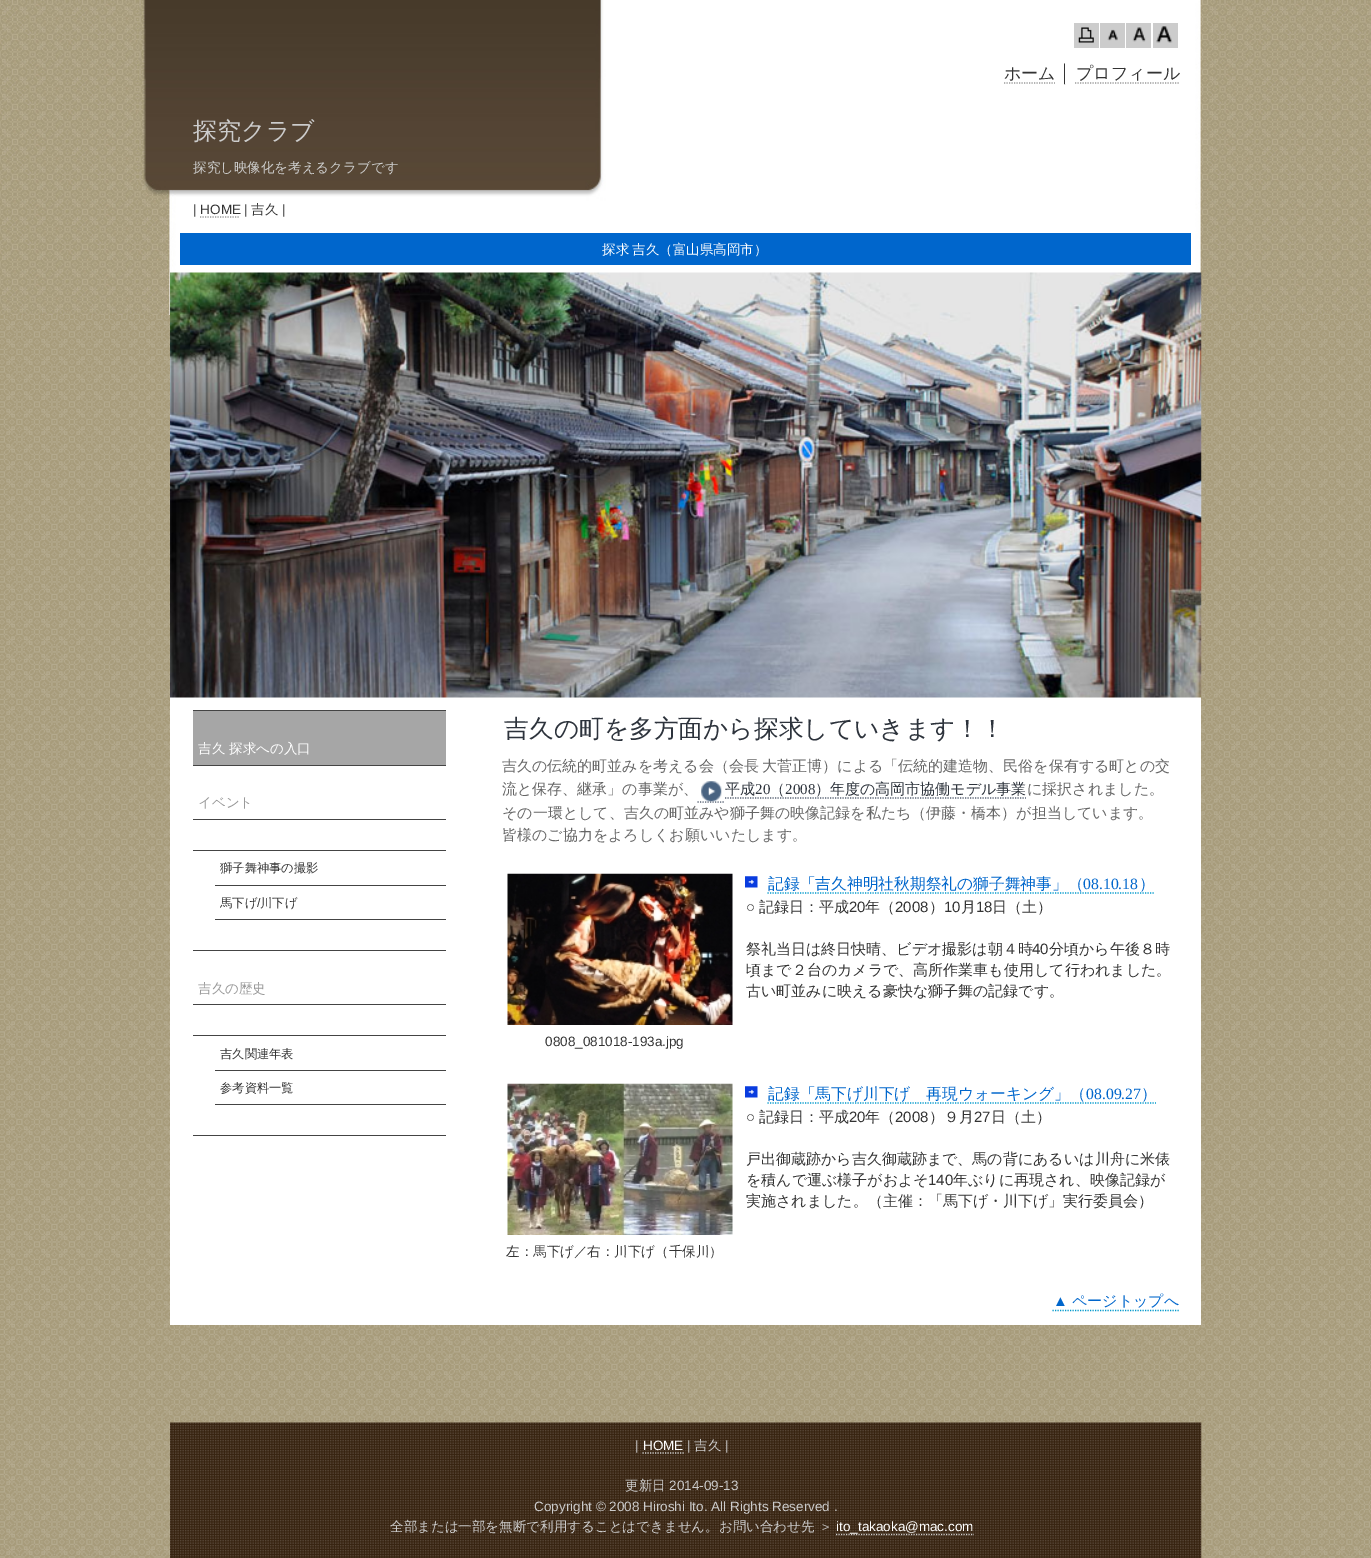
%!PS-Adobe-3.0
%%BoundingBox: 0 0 1371 1558
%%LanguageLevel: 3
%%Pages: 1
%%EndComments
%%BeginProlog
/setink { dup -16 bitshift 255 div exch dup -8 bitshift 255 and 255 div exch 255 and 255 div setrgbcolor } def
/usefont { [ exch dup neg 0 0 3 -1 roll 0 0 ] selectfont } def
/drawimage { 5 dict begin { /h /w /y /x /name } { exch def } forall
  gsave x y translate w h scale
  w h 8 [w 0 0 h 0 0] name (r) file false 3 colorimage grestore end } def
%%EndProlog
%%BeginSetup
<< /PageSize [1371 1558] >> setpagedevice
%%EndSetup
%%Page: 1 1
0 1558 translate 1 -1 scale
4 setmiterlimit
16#FFFFFF setink
0 0 1371 1558 rectfill
(img1.raw) 0 315 1371 1243 drawimage
(img2.raw) 0 0 1371 315 drawimage
16#CCCCCC setink
1074 23 25 25 rectfill
(img3.raw) 1078 27 16 16 drawimage
1100 23 25 25 rectfill
(img4.raw) 1107 29 11 12 drawimage
1126 23 25 25 rectfill
(img5.raw) 1132 27 14 15 drawimage
1153 23 25 25 rectfill
(img6.raw) 1156 26 17 17 drawimage
/WenQuanYiZenHei-Medium 17 usefont
16#333333 setink
1004 79 moveto (ホーム) show
16#999999 setink
1.2 setlinewidth
[1.25 1.25] 0 setdash
1004 83 moveto 1055 83 lineto stroke
/LiberationSans-Regular 17 usefont
16#333333 setink
1060 79 moveto (│) show
/WenQuanYiZenHei-Medium 17 usefont
1076 79 moveto (プロフィール) show
16#999999 setink
1075 83 moveto 1179 83 lineto stroke
/WenQuanYiZenHei-Medium 24 usefont
16#CCCCCC setink
193 139 moveto (探究クラブ) show
/WenQuanYiZenHei-Medium 13.5 usefont
193 172 moveto (探究し映像化を考えるクラブです) show
/LiberationSans-Regular 13.5 usefont
16#333333 setink
193 214 moveto (| HOME |) show
16#999999 setink
200 217 moveto 240 217 lineto stroke
/WenQuanYiZenHei-Medium 13.5 usefont
16#333333 setink
251 214 moveto (吉久) show
/LiberationSans-Regular 13.5 usefont
282 214 moveto (|) show
16#0066CC setink
180 233 1011 32 rectfill
/WenQuanYiZenHei-Medium 13.5 usefont
16#FFFFFF setink
602 254 moveto -1 0 32 (探求 吉久（富山県高岡市）) widthshow
170 697 1031 628 rectfill
(img7.raw) 170 272 1032 426 drawimage
[
    [193 710 253 1 16#444444]
    [193 711 253 54 16#A6A6A6]
    [193 765 253 1 16#444444]
] { aload pop setink rectfill } forall
16#FFFFFF setink
198 753 moveto (吉久 探求への入口) show
16#444444 setink
193 819 253 1 rectfill
16#999999 setink
198 807 moveto (イベント) show
16#444444 setink
193 850 253 1 rectfill
215 885 231 1 rectfill
/WenQuanYiZenHei-Medium 12.25 usefont
16#333333 setink
220 872 moveto (獅子舞神事の撮影) show
16#444444 setink
215 919 231 1 rectfill
16#333333 setink
220 907 moveto (馬下げ) show
/LiberationSans-Regular 12.25 usefont
257 907 moveto (/) show
/WenQuanYiZenHei-Medium 12.25 usefont
260 907 moveto (川下げ) show
16#444444 setink
193 950 253 1 rectfill
193 1004 253 1 rectfill
/WenQuanYiZenHei-Medium 13.5 usefont
16#999999 setink
198 993 moveto (吉久の歴史) show
16#444444 setink
193 1035 253 1 rectfill
215 1070 231 1 rectfill
/WenQuanYiZenHei-Medium 12.25 usefont
16#333333 setink
220 1058 moveto (吉久関連年表) show
16#444444 setink
215 1104 231 1 rectfill
16#333333 setink
220 1092 moveto (参考資料一覧) show
16#444444 setink
193 1135 253 1 rectfill
/WenQuanYiZenHei-Medium 24.75 usefont
16#2D333C setink
504 737 moveto (吉久の町を多方面から探求していきます！！) show
/WenQuanYiZenHei-Medium 15 usefont
16#666666 setink
502 771 moveto -1 0 32 (吉久の伝統的町並みを考える会（会長 大菅正博）による「伝統的建造物、民俗を保有する町との交) widthshow
502 794 moveto (流と保存、継承」の事業が、) show
16#556072 setink
697.5 802 moveto 725 802 lineto stroke
(img8.raw) 701 781 21 21 drawimage
16#2D333C setink
725 794 moveto (平成) show
/LiberationSerif-Regular 15 usefont
755 794 moveto (20) show
/WenQuanYiZenHei-Medium 15 usefont
770 794 moveto (（) show
16#556072 setink
725 798 moveto 1026 798 lineto stroke
/LiberationSerif-Regular 15 usefont
16#2D333C setink
785 794 moveto (2008) show
/WenQuanYiZenHei-Medium 15 usefont
815 794 moveto (）年度の高岡市協働モデル事業) show
16#666666 setink
[
    [(に採択されました。) 1027 794]
    [(その一環として、吉久の町並みや獅子舞の映像記録を私たち（伊藤・橋本）が担当しています。) 502 818]
    [(皆様のご協力をよろしくお願いいたします。) 502 840]
] { aload pop moveto show } forall
(img9.raw) 745 876 13 12 drawimage
/WenQuanYiZenHei-Medium 15.75 usefont
16#0066CC setink
768 889 moveto (記録「吉久神明社秋期祭礼の獅子舞神事」（) show
/LiberationSerif-Regular 15.75 usefont
1083 889 moveto (08.10.18) show
/WenQuanYiZenHei-Medium 15.75 usefont
1139 889 moveto (）) show
16#0099CC setink
767.5 893 moveto 1154 893 lineto stroke
/LiberationSans-Regular 15 usefont
16#333333 setink
746 912 moveto (○) show
/WenQuanYiZenHei-Medium 15 usefont
759 912 moveto (記録日：平成) show
/LiberationSans-Regular 15 usefont
849 912 moveto (20) show
/WenQuanYiZenHei-Medium 15 usefont
865 912 moveto (年（) show
/LiberationSans-Regular 15 usefont
895 912 moveto (2008) show
/WenQuanYiZenHei-Medium 15 usefont
929 912 moveto (）) show
/LiberationSans-Regular 15 usefont
944 912 moveto (10) show
/WenQuanYiZenHei-Medium 15 usefont
961 912 moveto (月) show
/LiberationSans-Regular 15 usefont
976 912 moveto (18) show
/WenQuanYiZenHei-Medium 15 usefont
992 912 moveto (日（土）) show
746 954 moveto (祭礼当日は終日快晴、ビデオ撮影は朝４時) show
/LiberationSans-Regular 15 usefont
1032 954 moveto (40) show
/WenQuanYiZenHei-Medium 15 usefont
[
    [(分頃から午後８時) 1049 954]
    [(頃まで２台のカメラで、高所作業車も使用して行われました。) 746 975]
    [(古い町並みに映える豪快な獅子舞の記録です。) 746 996]
] { aload pop moveto show } forall
(img10.raw) 507 873 226 152 drawimage
/LiberationSans-Regular 13.5 usefont
545 1046 moveto (0808_081018-193a.jpg) show
(img9.raw) 745 1086 13 12 drawimage
/WenQuanYiZenHei-Medium 15.75 usefont
16#0066CC setink
768 1099 moveto (記録「馬下げ川下げ　再現ウォーキング」（) show
/LiberationSerif-Regular 15.75 usefont
1086 1099 moveto (08.09.27) show
/WenQuanYiZenHei-Medium 15.75 usefont
1141 1099 moveto (）) show
16#0099CC setink
767.5 1103 moveto 1156 1103 lineto stroke
/LiberationSans-Regular 15 usefont
16#333333 setink
746 1122 moveto (○) show
/WenQuanYiZenHei-Medium 15 usefont
759 1122 moveto (記録日：平成) show
/LiberationSans-Regular 15 usefont
849 1122 moveto (20) show
/WenQuanYiZenHei-Medium 15 usefont
865 1122 moveto (年（) show
/LiberationSans-Regular 15 usefont
895 1122 moveto (2008) show
/WenQuanYiZenHei-Medium 15 usefont
929 1122 moveto (）９月) show
/LiberationSans-Regular 15 usefont
974 1122 moveto (27) show
/WenQuanYiZenHei-Medium 15 usefont
[
    [(日（土）) 991 1122]
    [(戸出御蔵跡から吉久御蔵跡まで、馬の背にあるいは川舟に米俵) 746 1164]
    [(を積んで運ぶ様子がおよそ) 746 1185]
] { aload pop moveto show } forall
/LiberationSans-Regular 15 usefont
928 1185 moveto (140) show
/WenQuanYiZenHei-Medium 15 usefont
953 1185 moveto (年ぶりに再現され、映像記録が) show
746 1206 moveto (実施されました。（主催：「馬下げ・川下げ」実行委員会）) show
(img11.raw) 507 1083 226 152 drawimage
/WenQuanYiZenHei-Medium 13.5 usefont
506 1256 moveto (左：馬下げ／右：川下げ（千保川）) show
/LiberationSans-Regular 15 usefont
16#0066CC setink
1053 1306 moveto (▲) show
16#0099CC setink
1052.5 1310.5 moveto 1179 1310.5 lineto stroke
/WenQuanYiZenHei-Medium 15 usefont
16#0066CC setink
1072 1306 moveto (ページトップへ) show
(img12.raw) 170 1422 1032 136 drawimage
/LiberationSans-Regular 13.5 usefont
16#CCCCCC setink
635 1450 moveto (|) show
16#FFFFFF setink
643 1450 moveto (HOME) show
16#CCCCCC setink
642.5 1453 moveto 684 1453 lineto stroke
687 1450 moveto (|) show
/WenQuanYiZenHei-Medium 13.5 usefont
694 1450 moveto (吉久) show
/LiberationSans-Regular 13.5 usefont
725 1450 moveto (|) show
/WenQuanYiZenHei-Medium 13.5 usefont
625 1490 moveto (更新日) show
/LiberationSans-Regular 13.5 usefont
669 1490 moveto (2014-09-13) show
534 1511 moveto (Copyright © 2008 Hiroshi Ito. All Rights Reserved .) show
/WenQuanYiZenHei-Medium 13.5 usefont
390 1531 moveto (全部または一部を無断で利用することはできません。お問い合わせ先 ＞) show
836 1534.5 moveto 974 1534.5 lineto stroke
/LiberationSans-Regular 13.5 usefont
16#FFFFFF setink
836 1531 moveto (ito_takaoka@mac.com) show
showpage
%%EOF
